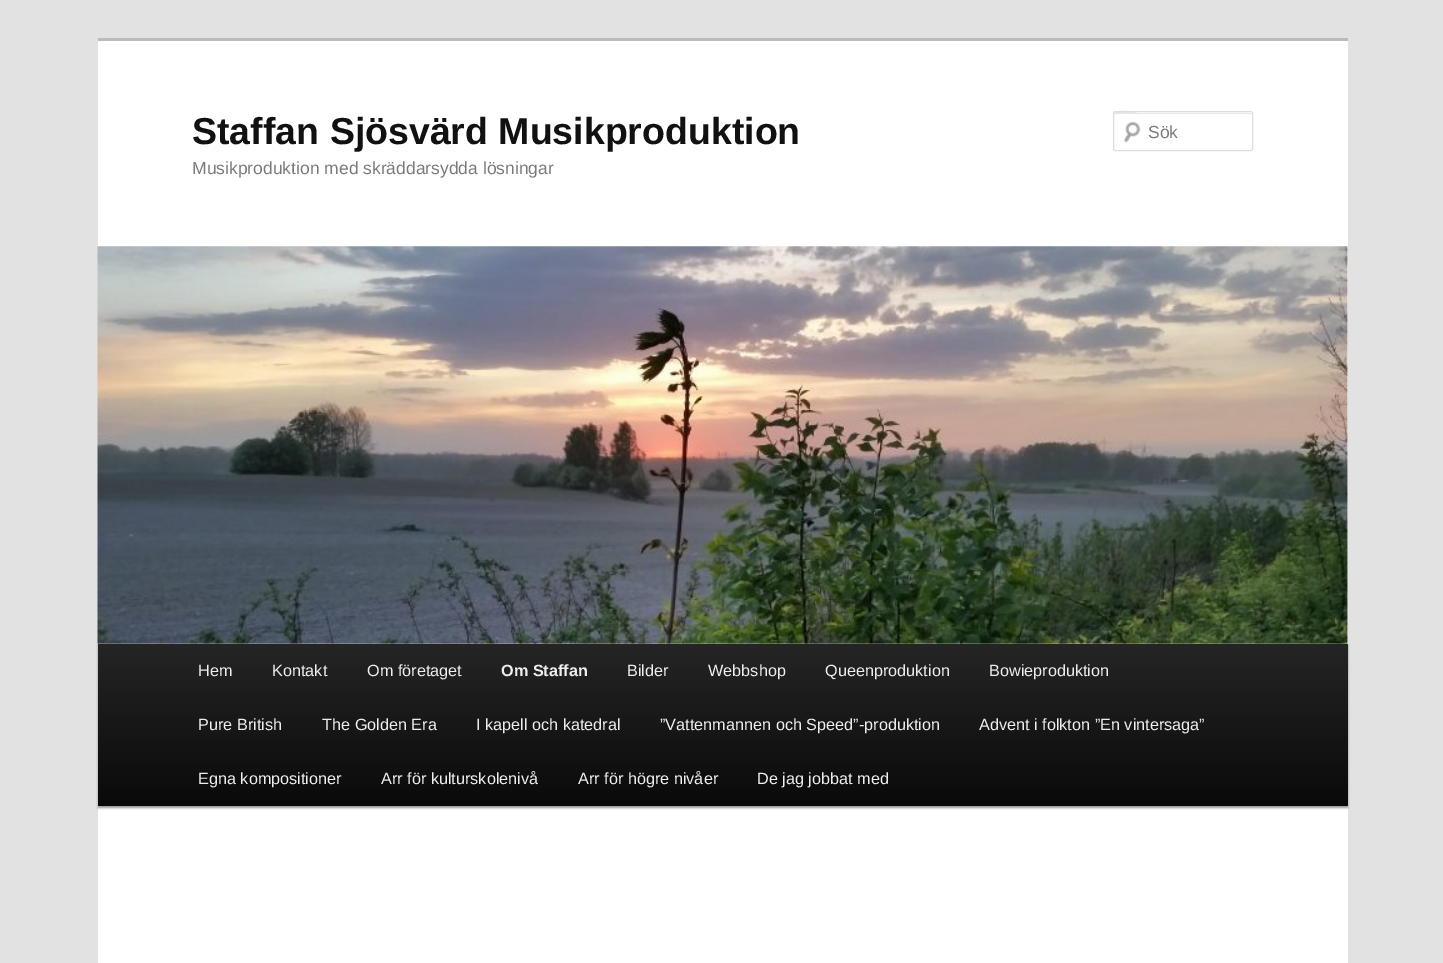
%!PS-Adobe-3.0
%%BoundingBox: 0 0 1443 963
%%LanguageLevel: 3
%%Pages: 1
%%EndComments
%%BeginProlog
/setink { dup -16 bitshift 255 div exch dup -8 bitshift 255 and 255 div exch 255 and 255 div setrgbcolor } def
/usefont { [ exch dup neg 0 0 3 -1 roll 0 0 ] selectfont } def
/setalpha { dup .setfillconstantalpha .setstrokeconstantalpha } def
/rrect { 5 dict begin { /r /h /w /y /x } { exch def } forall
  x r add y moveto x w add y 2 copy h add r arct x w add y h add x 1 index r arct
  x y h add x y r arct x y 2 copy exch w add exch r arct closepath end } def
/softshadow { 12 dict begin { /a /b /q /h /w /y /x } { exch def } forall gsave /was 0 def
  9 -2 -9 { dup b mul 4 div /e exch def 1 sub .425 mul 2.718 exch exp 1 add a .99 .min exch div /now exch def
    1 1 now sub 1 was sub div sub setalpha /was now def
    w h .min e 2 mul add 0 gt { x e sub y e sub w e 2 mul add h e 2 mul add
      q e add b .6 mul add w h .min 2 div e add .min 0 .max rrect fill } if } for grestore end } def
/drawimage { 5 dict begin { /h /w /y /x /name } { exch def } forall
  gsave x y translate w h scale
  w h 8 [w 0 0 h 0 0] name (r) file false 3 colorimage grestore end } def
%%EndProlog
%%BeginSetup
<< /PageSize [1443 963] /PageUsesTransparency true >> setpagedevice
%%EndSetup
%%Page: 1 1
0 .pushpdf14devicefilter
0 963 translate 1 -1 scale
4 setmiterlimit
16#E2E2E2 setink
0 0 1443 963 rectfill
16#FFFFFF setink
98 41 1250 922 rectfill
16#BBBBBB setink
98 38 1250 3 rectfill
/LiberationSans-Bold 37.5 usefont
16#111111 setink
192 144 moveto (Staffan Sjösvärd Musikproduktion) show
/LiberationSans-Regular 17.5 usefont
16#7A7A7A setink
192 174 moveto (Musikproduktion med skräddarsydda lösningar) show
(img1.raw) 1123 121 18 22 drawimage
16#E6E6E6 setink
1115 114 moveto 1250 114 lineto 1251 114 1251 114 1251 115 curveto 1251 113 lineto 1138 113 lineto 1137 113 1114 107 1114 115 curveto 1114 114 1114 114 1115 114 curveto closepath fill
16#DDDDDD setink
1113.5 111.5 139 39 2 rrect stroke
16#7A7A7A setink
1148 138 moveto (Sök) show
16#000000 setink
98 645 1250 163 0 1 0.4 softshadow
(img2.raw) 97 246 1251 398 drawimage
gsave 98 644 moveto 1348 644 lineto 1348 806 lineto 98 806 lineto closepath clip newpath
<< /ShadingType 2 /ColorSpace /DeviceRGB /Coords [723 644 723 806] /Extend [true true] /Function << /FunctionType 2 /Domain [0 1] /C0 [0.145 0.145 0.145] /C1 [0.039 0.039 0.039] /N 1 >> >> shfill grestore
/LiberationSans-Regular 16.25 usefont
16#EEEEEE setink
[
    [(Hem) 198 676]
    [(Kontakt) 272 676]
    [(Om företaget) 367 676]
] { aload pop moveto show } forall
/LiberationSans-Bold 16.25 usefont
501 676 moveto (Om Staffan) show
/LiberationSans-Regular 16.25 usefont
[
    [(Bilder) 627 676]
    [(Webbshop) 708 676]
    [(Queenproduktion) 825 676]
    [(Bowieproduktion) 989 676]
    [(Pure British) 198 730]
    [(The Golden Era) 322 730]
    [(I kapell och katedral) 476 730]
    [(”Vattenmannen och Speed”-produktion) 660 730]
    [(Advent i folkton ”En vintersaga”) 979 730]
    [(Egna kompositioner) 198 784]
    [(Arr för kulturskolenivå) 381 784]
    [(Arr för högre nivåer) 578 784]
    [(De jag jobbat med) 757 784]
] { aload pop moveto show } forall
.poppdf14devicefilter showpage
%%EOF
